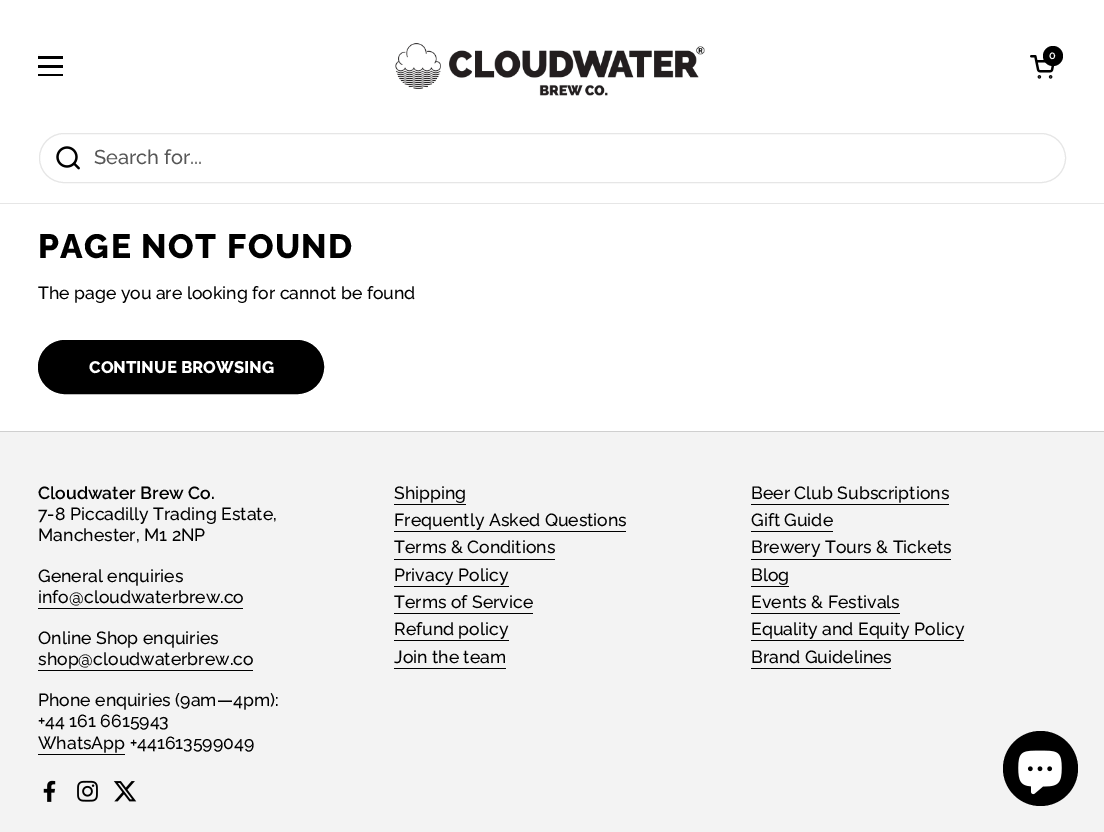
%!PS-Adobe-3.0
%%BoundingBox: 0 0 1104 832
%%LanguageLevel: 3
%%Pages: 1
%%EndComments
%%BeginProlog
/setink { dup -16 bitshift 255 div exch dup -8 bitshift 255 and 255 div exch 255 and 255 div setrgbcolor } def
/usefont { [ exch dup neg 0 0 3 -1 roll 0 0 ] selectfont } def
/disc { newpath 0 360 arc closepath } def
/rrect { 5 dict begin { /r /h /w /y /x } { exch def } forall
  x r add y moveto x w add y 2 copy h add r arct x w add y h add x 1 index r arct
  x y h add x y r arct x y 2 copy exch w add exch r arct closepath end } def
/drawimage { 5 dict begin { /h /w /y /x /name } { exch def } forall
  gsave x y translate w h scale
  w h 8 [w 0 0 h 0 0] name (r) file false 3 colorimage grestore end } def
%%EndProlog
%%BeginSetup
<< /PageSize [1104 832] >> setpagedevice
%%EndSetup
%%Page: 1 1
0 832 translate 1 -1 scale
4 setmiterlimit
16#FFFFFF setink
0 0 1104 832 rectfill
[
    [38 56 25 3 16#000000]
    [38 65 25 3 16#000000]
    [38 74 25 2 16#000000]
] { aload pop setink rectfill } forall
(img1.raw) 395 43 310 53 drawimage
(img2.raw) 1030 55 25 24 drawimage
1053 56 10 disc fill
/Raleway-SemiBold 11 usefont
16#FFFFFF setink
1049 59 moveto (0) show
16#E6E6E6 setink
0 203 1104 1 rectfill
39.5 133.5 1026 49 24.5 rrect stroke
(img3.raw) 56 146 24 24 drawimage
/Raleway-Medium 20 usefont
16#575757 setink
94 164 moveto (Search for...) show
/Raleway-ExtraBold 33.75 usefont
16#000000 setink
38 258 moveto 1.4 0 (PAGE NOT FOUND) ashow
/Raleway-Medium 17.6 usefont
38 299 moveto (The page you are looking for cannot be found) show
38.5 340.5 285 53 26.5 rrect gsave fill grestore
stroke
/Raleway-ExtraBold 16.75 usefont
16#FFFFFF setink
89 373 moveto (CONTINUE BROWSING) show
16#F3F3F3 setink
0 432 1104 400 rectfill
16#CFCFCF setink
0 431 1104 1 rectfill
/Raleway-SemiBold 17.6 usefont
16#000000 setink
38 499 moveto (Cloudwater Brew Co.) show
/Raleway-Medium 17.6 usefont
[
    [(7-8 Piccadilly Trading Estate,) 38 520]
    [(Manchester, M1 2NP) 38 541]
    [(General enquiries) 38 582]
    [(info@cloudwaterbrew.co) 38 603]
] { aload pop moveto show } forall
38 608 205 1 rectfill
38 644 moveto (Online Shop enquiries) show
38 665 moveto (shop@cloudwaterbrew.co) show
38 670 215 1 rectfill
[
    [(Phone enquiries \(9am—4pm\):) 38 706]
    [(+44 161 6615943) 38 727]
    [(WhatsApp +441613599049) 38 749]
] { aload pop moveto show } forall
38 754 87 1 rectfill
(img4.raw) 43 780 13 22 drawimage
(img5.raw) 77 780 21 22 drawimage
(img6.raw) 113 781 24 21 drawimage
394 499 moveto (Shipping) show
394 504 72 1 rectfill
394 526 moveto (Frequently Asked Questions) show
394 531 232 1 rectfill
394 553 moveto (Terms & Conditions) show
394 559 161 1 rectfill
394 581 moveto (Privacy Policy) show
394 586 115 1 rectfill
394 608 moveto (Terms of Service) show
394 613 139 1 rectfill
394 635 moveto (Refund policy) show
394 640 115 1 rectfill
394 663 moveto (Join the team) show
394 668 112 1 rectfill
751 499 moveto (Beer Club Subscriptions) show
751 504 198 1 rectfill
751 526 moveto (Gift Guide) show
751 531 82 1 rectfill
751 553 moveto (Brewery Tours & Tickets) show
751 559 200 1 rectfill
751 581 moveto (Blog) show
751 586 38 1 rectfill
751 608 moveto (Events & Festivals) show
751 613 149 1 rectfill
751 635 moveto (Equality and Equity Policy) show
751 640 213 1 rectfill
751 663 moveto (Brand Guidelines) show
751 668 140 1 rectfill
1040.5 768.5 37.5 disc fill
(img7.raw) 1018 750 44 45 drawimage
showpage
%%EOF
